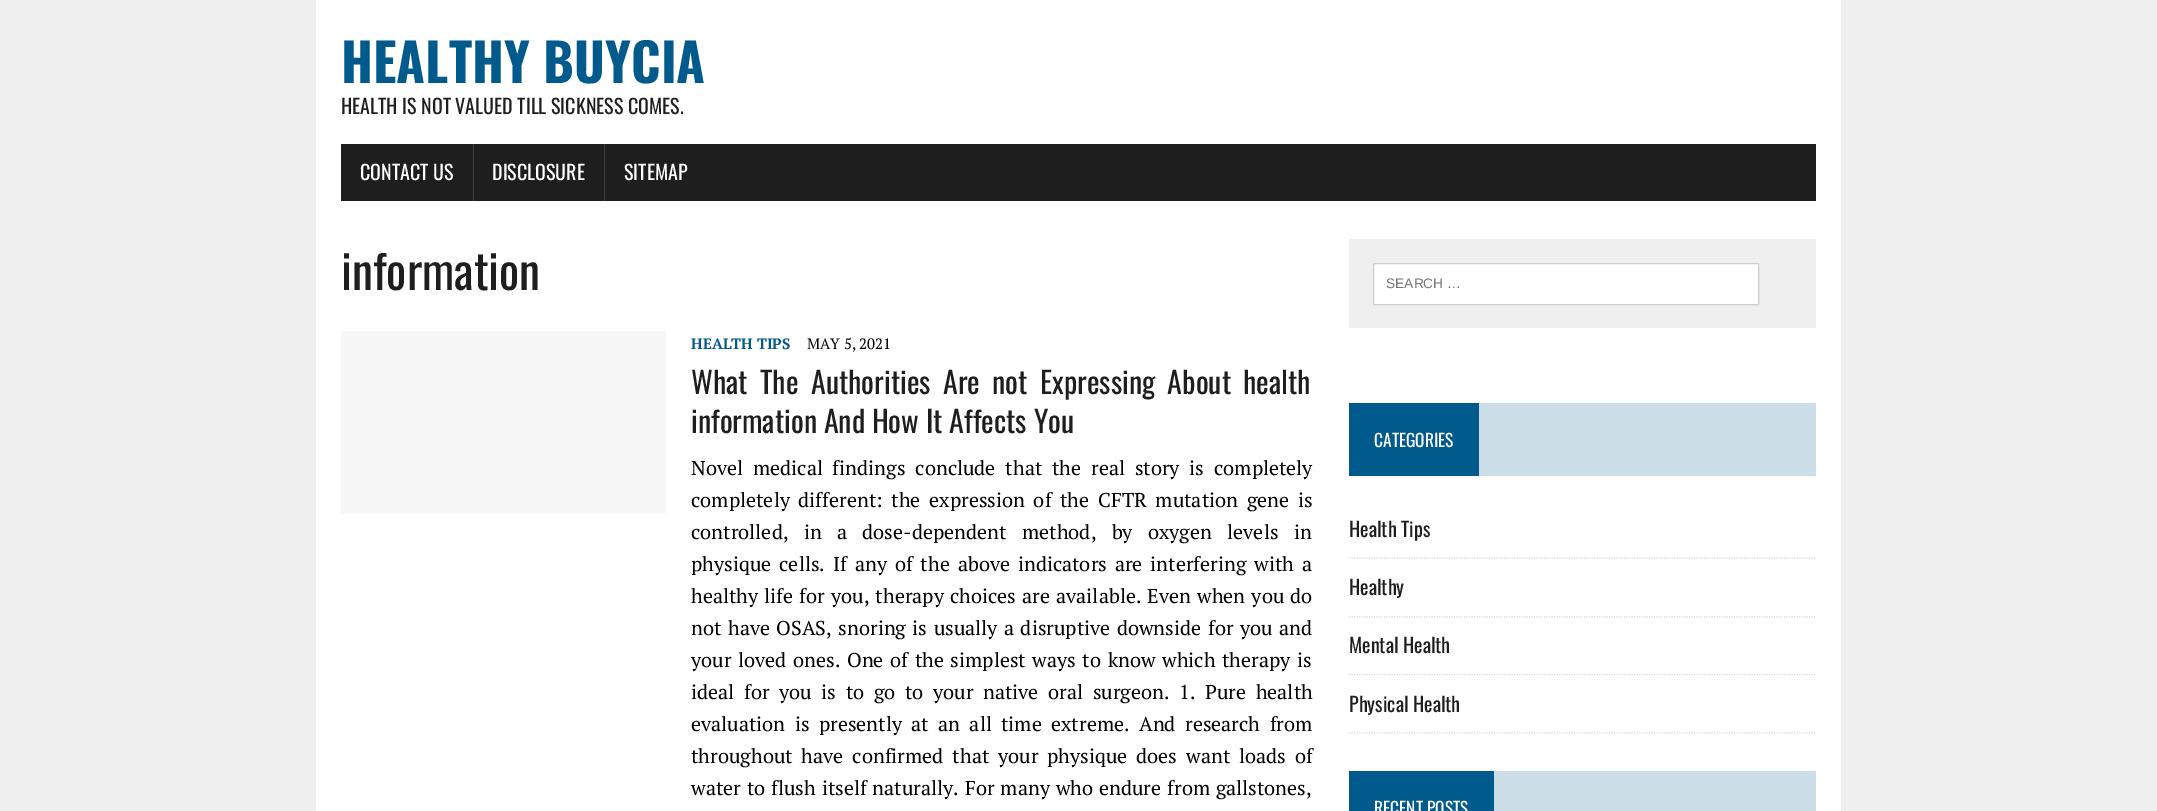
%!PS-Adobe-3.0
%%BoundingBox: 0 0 2157 811
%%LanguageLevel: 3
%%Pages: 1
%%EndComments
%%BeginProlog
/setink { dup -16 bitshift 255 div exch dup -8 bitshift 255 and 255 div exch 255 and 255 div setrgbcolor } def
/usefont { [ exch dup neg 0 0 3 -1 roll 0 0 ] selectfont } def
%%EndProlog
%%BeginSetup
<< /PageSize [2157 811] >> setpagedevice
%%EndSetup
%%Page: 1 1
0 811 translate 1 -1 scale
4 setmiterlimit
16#EFEFEF setink
0 0 2157 811 rectfill
16#FFFFFF setink
316 0 1525 811 rectfill
/Oswald-Bold 52.5 usefont
16#005A8C setink
341 83 moveto (HEALTHY BUYCIA) show
/Oswald-Regular 20 usefont
16#1F1E1E setink
341 114 moveto (HEALTH IS NOT VALUED TILL SICKNESS COMES.) show
341 144 1475 57 rectfill
16#FFFFFF setink
360 180 moveto (CONTACT US) show
16#424242 setink
473 144 1 57 rectfill
16#FFFFFF setink
492 180 moveto (DISCLOSURE) show
16#424242 setink
604 144 1 57 rectfill
16#FFFFFF setink
624 180 moveto (SITEMAP) show
/Oswald-Regular 47.5 usefont
16#1F1E1E setink
341 290 moveto (information) show
16#F7F7F7 setink
341 331 325 183 rectfill
/PTSerif-Bold 15 usefont
16#005A8C setink
691 349 moveto (HEALTH TIPS) show
/PTSerif-Regular 15 usefont
16#000000 setink
807 349 moveto (MAY 5, 2021) show
/Oswald-Regular 30 usefont
16#1F1E1E setink
691 394 moveto 5.5 0 32 (What The Authorities Are not Expressing About health) widthshow
691 433 moveto (information And How It Affects You) show
/PTSerif-Regular 20 usefont
16#000000 setink
691 475 moveto 5 0 32 (Novel medical findings conclude that the real story is completely) widthshow
691 507 moveto 3.75 0 32 (completely different: the expression of the CFTR mutation gene is) widthshow
691 539 moveto 10.5 0 32 (controlled, in a dose-dependent method, by oxygen levels in) widthshow
691 571 moveto 3 0 32 (physique cells.) widthshow
833 571 moveto 3 0 32 (If any of the above indicators are interfering with a) widthshow
691 603 moveto 1.25 0 32 (healthy life for you, therapy choices are available. Even when you do) widthshow
691 635 moveto 1.6 0 32 (not have OSAS, snoring is usually a disruptive downside for you and) widthshow
691 667 moveto 1.75 0 32 (your loved ones. One of the simplest ways to know which therapy is) widthshow
691 699 moveto 4.75 0 32 (ideal for you is to go to your native oral surgeon.) widthshow
1179 699 moveto 4.75 0 32 (1. Pure health) widthshow
691 731 moveto 4.5 0 32 (evaluation is presently at an all time extreme. And research from) widthshow
691 763 moveto 4 0 32 (throughout have confirmed that your physique does want loads of) widthshow
691 795 moveto 1 0 32 (water to flush itself naturally.) widthshow
965 795 moveto 1 0 32 (For many who endure from gallstones,) widthshow
16#EFEFEF setink
1349 239 467 89 rectfill
16#FFFFFF setink
1373.5 263.5 moveto 1758.5 263.5 lineto 1758.5 304.5 lineto 1373.5 304.5 lineto closepath gsave fill grestore
16#CDCDCD setink
stroke
/LiberationSans-Regular 13.75 usefont
16#757575 setink
1386 288 moveto (SEARCH …) show
16#CCDEE8 setink
1479 403 337 73 rectfill
16#005A8C setink
1349 403 130 73 rectfill
/Oswald-Regular 17.5 usefont
16#FFFFFF setink
1374 447 moveto (CATEGORIES) show
16#DCDCDC setink
1.2 setlinewidth
[1.25 1.25] 0 setdash
1349 558 moveto 1816 558 lineto stroke
/Oswald-Regular 20 usefont
16#1F1E1E setink
1349 537 moveto (Health Tips) show
16#DCDCDC setink
1349 617 moveto 1816 617 lineto stroke
16#1F1E1E setink
1349 595 moveto (Healthy) show
16#DCDCDC setink
1349 674.5 moveto 1816 674.5 lineto stroke
16#1F1E1E setink
1349 653 moveto (Mental Health) show
16#DCDCDC setink
1349 733 moveto 1816 733 lineto stroke
16#1F1E1E setink
1349 712 moveto (Physical Health) show
16#CCDEE8 setink
1494 771 322 40 rectfill
16#005A8C setink
1349 771 145 40 rectfill
/Oswald-Regular 17.5 usefont
16#FFFFFF setink
1374 815 moveto (RECENT POSTS) show
showpage
%%EOF
